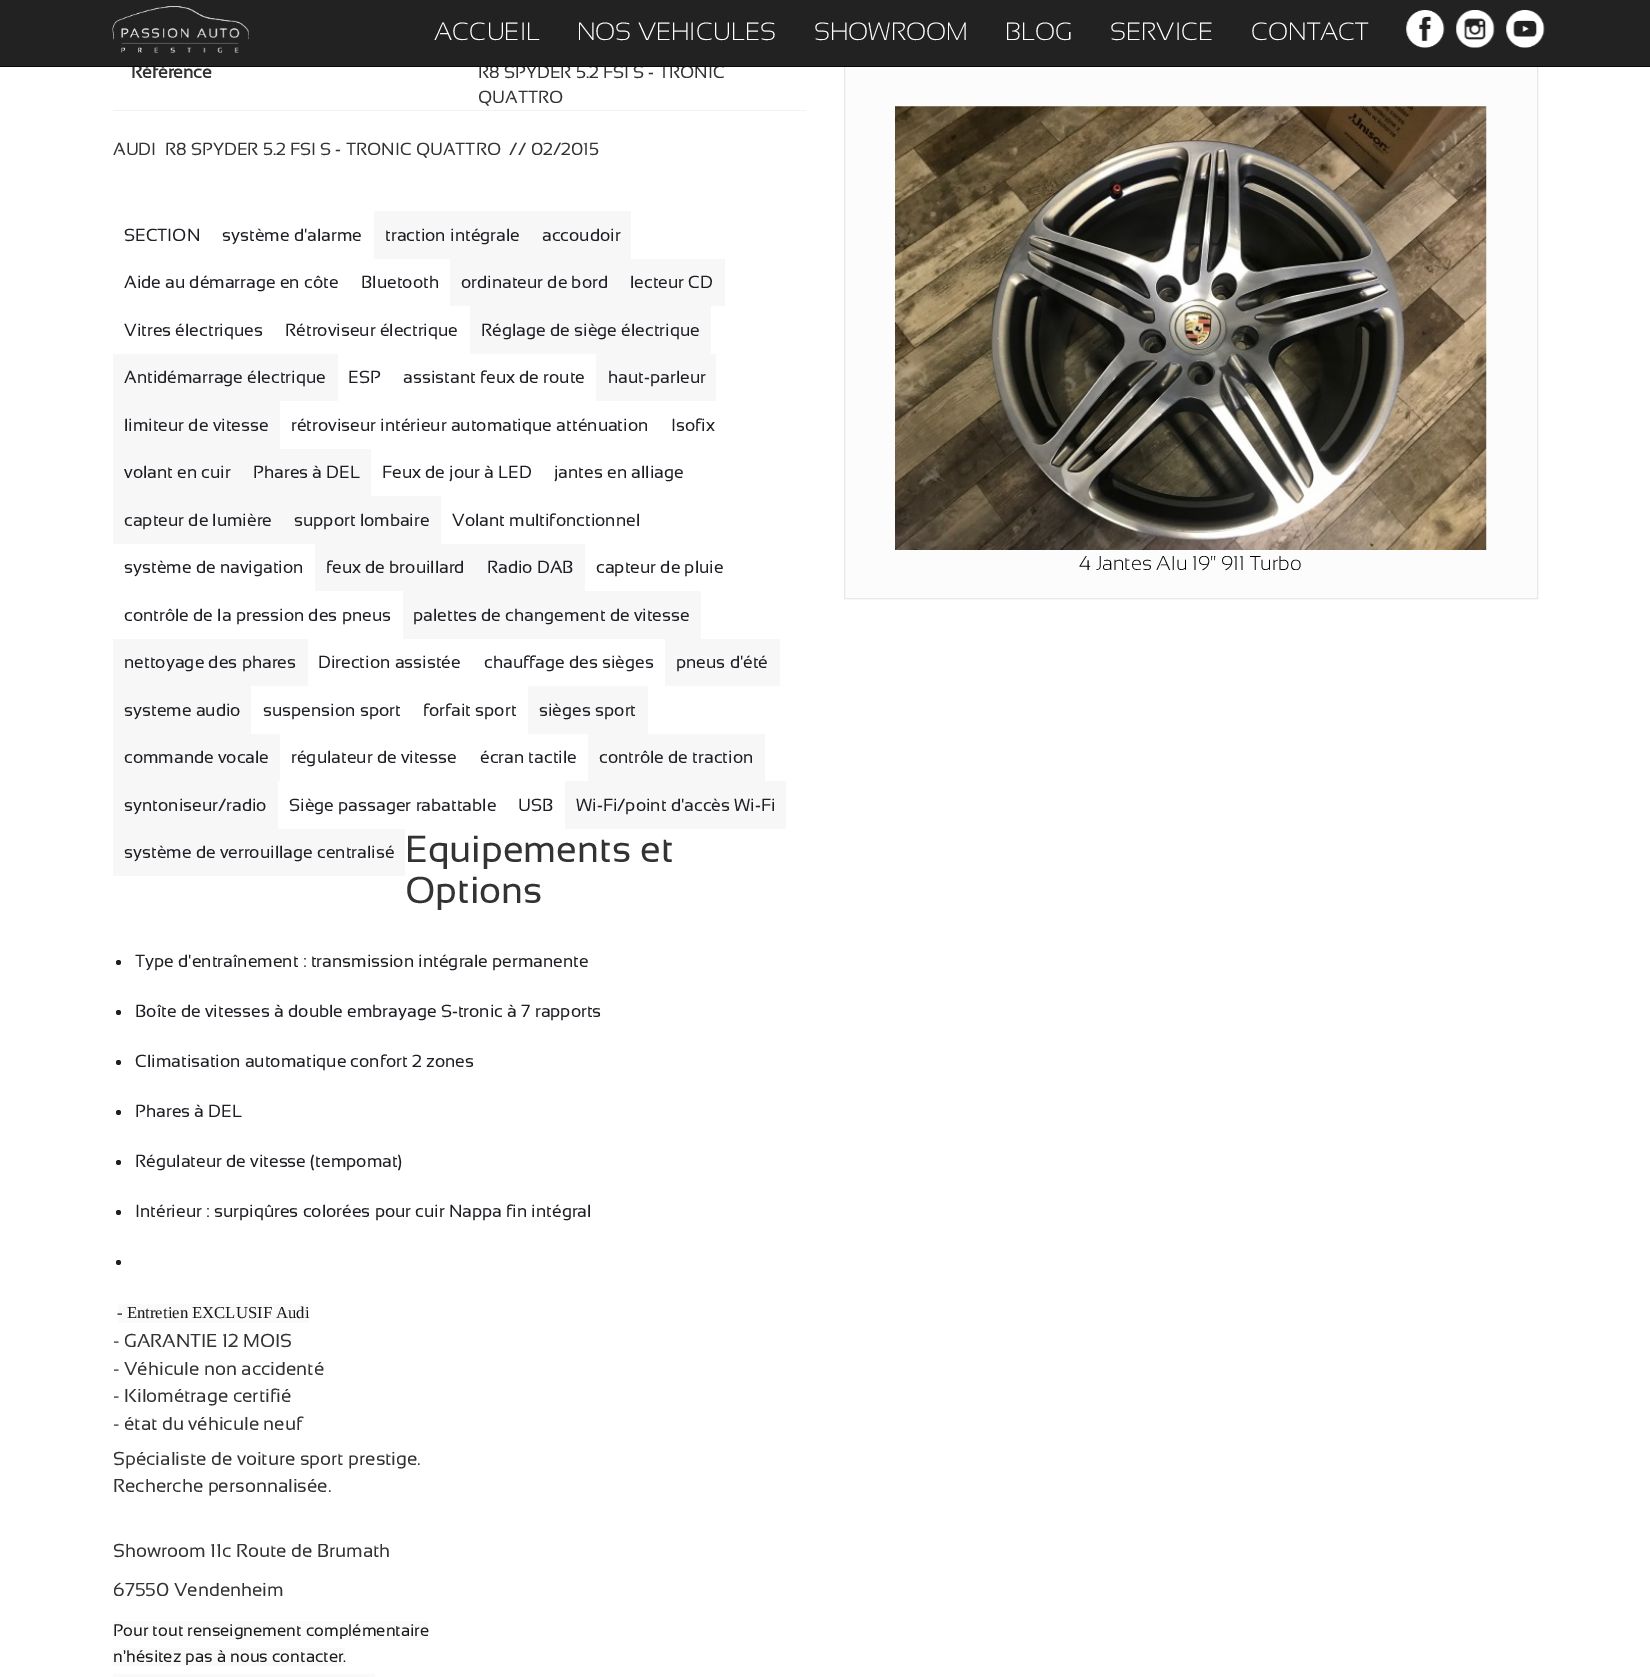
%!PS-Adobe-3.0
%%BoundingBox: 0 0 1650 1677
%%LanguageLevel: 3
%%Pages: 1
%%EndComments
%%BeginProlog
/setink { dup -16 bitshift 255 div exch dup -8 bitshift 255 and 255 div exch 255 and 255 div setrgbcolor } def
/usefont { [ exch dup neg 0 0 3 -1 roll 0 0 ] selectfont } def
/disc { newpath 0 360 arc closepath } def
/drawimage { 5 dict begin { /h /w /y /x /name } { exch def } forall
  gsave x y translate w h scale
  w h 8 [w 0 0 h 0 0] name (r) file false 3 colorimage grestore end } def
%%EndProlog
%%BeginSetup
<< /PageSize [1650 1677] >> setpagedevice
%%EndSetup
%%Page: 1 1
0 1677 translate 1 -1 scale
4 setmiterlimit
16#FFFFFF setink
0 0 1650 1677 rectfill
/Sansation-Bold 17.5 usefont
16#333333 setink
131 78 moveto (Référence) show
/Sansation-Regular 17.5 usefont
478 78 moveto (R8 SPYDER 5.2 FSI S - TRONIC) show
16#FCFCFC setink
845 67 692 531 rectfill
16#E8E8E8 setink
844.5 -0.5 693 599 rectstroke
16#222222 setink
0 0 1650 66 rectfill
16#080808 setink
0 66 1650 1 rectfill
(img1.raw) 112 6 137 47 drawimage
/SansationLight-Light 25 usefont
16#FFFFFF setink
[
    [(ACCUEIL) 434 40]
    [(NOS VEHICULES) 577 40]
    [(SHOWROOM) 814 40]
    [(BLOG) 1005 40]
    [(SERVICE) 1110 40]
    [(CONTACT) 1251 40]
] { aload pop moveto show } forall
(img2.raw) 1406 10 39 38 drawimage
(img3.raw) 1456 10 39 38 drawimage
(img4.raw) 1506 10 39 38 drawimage
16#F2F2F2 setink
113 110 693 1 rectfill
/Sansation-Regular 17.5 usefont
16#333333 setink
478 103 moveto (QUATTRO) show
113 155 moveto (AUDI  R8 SPYDER 5.2 FSI S - TRONIC QUATTRO  // 02/2015) show
16#1E1F24 setink
124 241 moveto (SECTION) show
222 241 moveto (système d'alarme) show
16#F7F7F7 setink
374 211 257 48 rectfill
16#1E1F24 setink
[
    [(traction intégrale) 385 241]
    [(accoudoir) 542 241]
    [(Aide au démarrage en côte) 124 288]
    [(Bluetooth) 361 288]
] { aload pop moveto show } forall
16#F7F7F7 setink
450 259 275 47 rectfill
16#1E1F24 setink
[
    [(ordinateur de bord) 461 288]
    [(lecteur CD) 630 288]
    [(Vitres électriques) 124 336]
    [(Rétroviseur électrique) 285 336]
] { aload pop moveto show } forall
16#F7F7F7 setink
470 306 241 48 rectfill
16#1E1F24 setink
481 336 moveto (Réglage de siège électrique) show
16#F7F7F7 setink
113 354 225 47 rectfill
16#1E1F24 setink
[
    [(Antidémarrage électrique) 124 383]
    [(ESP) 348 383]
    [(assistant feux de route) 403 383]
] { aload pop moveto show } forall
16#F7F7F7 setink
596 354 120 47 rectfill
16#1E1F24 setink
608 383 moveto (haut-parleur) show
16#F7F7F7 setink
113 401 167 48 rectfill
16#1E1F24 setink
[
    [(limiteur de vitesse) 124 431]
    [(rétroviseur intérieur automatique atténuation) 291 431]
    [(Isofix) 671 431]
] { aload pop moveto show } forall
16#F7F7F7 setink
113 449 258 47 rectfill
16#1E1F24 setink
[
    [(volant en cuir) 124 478]
    [(Phares à DEL) 253 478]
    [(Feux de jour à LED) 382 478]
    [(jantes en alliage) 554 478]
] { aload pop moveto show } forall
16#F7F7F7 setink
113 496 328 48 rectfill
16#1E1F24 setink
[
    [(capteur de lumière) 124 526]
    [(support lombaire) 294 526]
    [(Volant multifonctionnel) 452 526]
    [(système de navigation) 124 573]
] { aload pop moveto show } forall
16#F7F7F7 setink
315 544 270 47 rectfill
16#1E1F24 setink
[
    [(feux de brouillard) 326 573]
    [(Radio DAB) 487 573]
    [(capteur de pluie) 596 573]
    [(contrôle de la pression des pneus) 124 621]
] { aload pop moveto show } forall
16#F7F7F7 setink
403 591 298 48 rectfill
16#1E1F24 setink
413 621 moveto (palettes de changement de vitesse) show
16#F7F7F7 setink
113 639 195 47 rectfill
16#1E1F24 setink
[
    [(nettoyage des phares) 124 668]
    [(Direction assistée) 318 668]
    [(chauffage des sièges) 484 668]
] { aload pop moveto show } forall
16#F7F7F7 setink
665 639 115 47 rectfill
16#1E1F24 setink
676 668 moveto (pneus d'été) show
16#F7F7F7 setink
113 686 138 48 rectfill
16#1E1F24 setink
[
    [(systeme audio) 124 716]
    [(suspension sport) 263 716]
    [(forfait sport) 423 716]
] { aload pop moveto show } forall
16#F7F7F7 setink
528 686 120 48 rectfill
16#1E1F24 setink
539 716 moveto (sièges sport) show
16#F7F7F7 setink
113 734 167 47 rectfill
16#1E1F24 setink
[
    [(commande vocale) 124 763]
    [(régulateur de vitesse) 291 763]
    [(écran tactile) 480 763]
] { aload pop moveto show } forall
16#F7F7F7 setink
588 734 177 47 rectfill
16#1E1F24 setink
599 763 moveto (contrôle de traction) show
16#F7F7F7 setink
113 781 165 48 rectfill
16#1E1F24 setink
[
    [(syntoniseur/radio) 124 811]
    [(Siège passager rabattable) 289 811]
    [(USB) 518 811]
] { aload pop moveto show } forall
16#F7F7F7 setink
565 781 221 48 rectfill
16#1E1F24 setink
576 811 moveto (Wi-Fi/point d'accès Wi-Fi) show
16#F7F7F7 setink
113 829 292 47 rectfill
16#1E1F24 setink
124 858 moveto (système de verrouillage centralisé) show
/Sansation-Regular 37.5 usefont
16#333333 setink
405 862 moveto (Equipements et) show
405 903 moveto (Options) show
16#1E1F24 setink
118.5 962.5 2.5 disc fill
/Sansation-Regular 17.5 usefont
135 967 moveto (Type d'entraînement : transmission intégrale permanente) show
118.5 1012.5 2.5 disc fill
135 1017 moveto (Boîte de vitesses à double embrayage S-tronic à 7 rapports) show
118.5 1062.5 2.5 disc fill
135 1067 moveto (Climatisation automatique confort 2 zones) show
118.5 1112.5 2.5 disc fill
135 1117 moveto (Phares à DEL) show
118.5 1162.5 2.5 disc fill
135 1167 moveto (Régulateur de vitesse \(tempomat\)) show
118.5 1212.5 2.5 disc fill
135 1217 moveto (Intérieur : surpiqûres colorées pour cuir Nappa fin intégral) show
118.5 1262.5 2.5 disc fill
16#FAFAFA setink
118 1304 191 19 rectfill
/LiberationSerif-Regular 16.7 usefont
16#1A1A1A setink
117 1318 moveto (- Entretien EXCLUSIF Audi) show
/Sansation-Regular 18.75 usefont
16#333333 setink
[
    [(- GARANTIE 12 MOIS) 113 1347]
    [(- Véhicule non accidenté) 113 1375]
    [(- Kilométrage certifié) 113 1402]
    [(- état du véhicule neuf) 113 1430]
    [(Spécialiste de voiture sport prestige.) 113 1465]
    [(Recherche personnalisée.) 113 1492]
    [(Showroom 11c Route de Brumath) 113 1557]
    [(67550 Vendenheim) 113 1596]
] { aload pop moveto show } forall
16#FAFAFA setink
113 1621 315 19 rectfill
/Sansation-Regular 16.7 usefont
16#1A1A1A setink
113 1636 moveto (Pour tout renseignement complémentaire) show
16#FAFAFA setink
113 1648 232 18 rectfill
16#1A1A1A setink
113 1662 moveto (n'hésitez pas à nous contacter.) show
16#FAFAFA setink
113 1674 262 3 rectfill
(img5.raw) 895 106 592 444 drawimage
/SansationLight-Light 20 usefont
16#000000 setink
1079 570 moveto (4 Jantes Alu 19'' 911 Turbo) show
showpage
%%EOF
